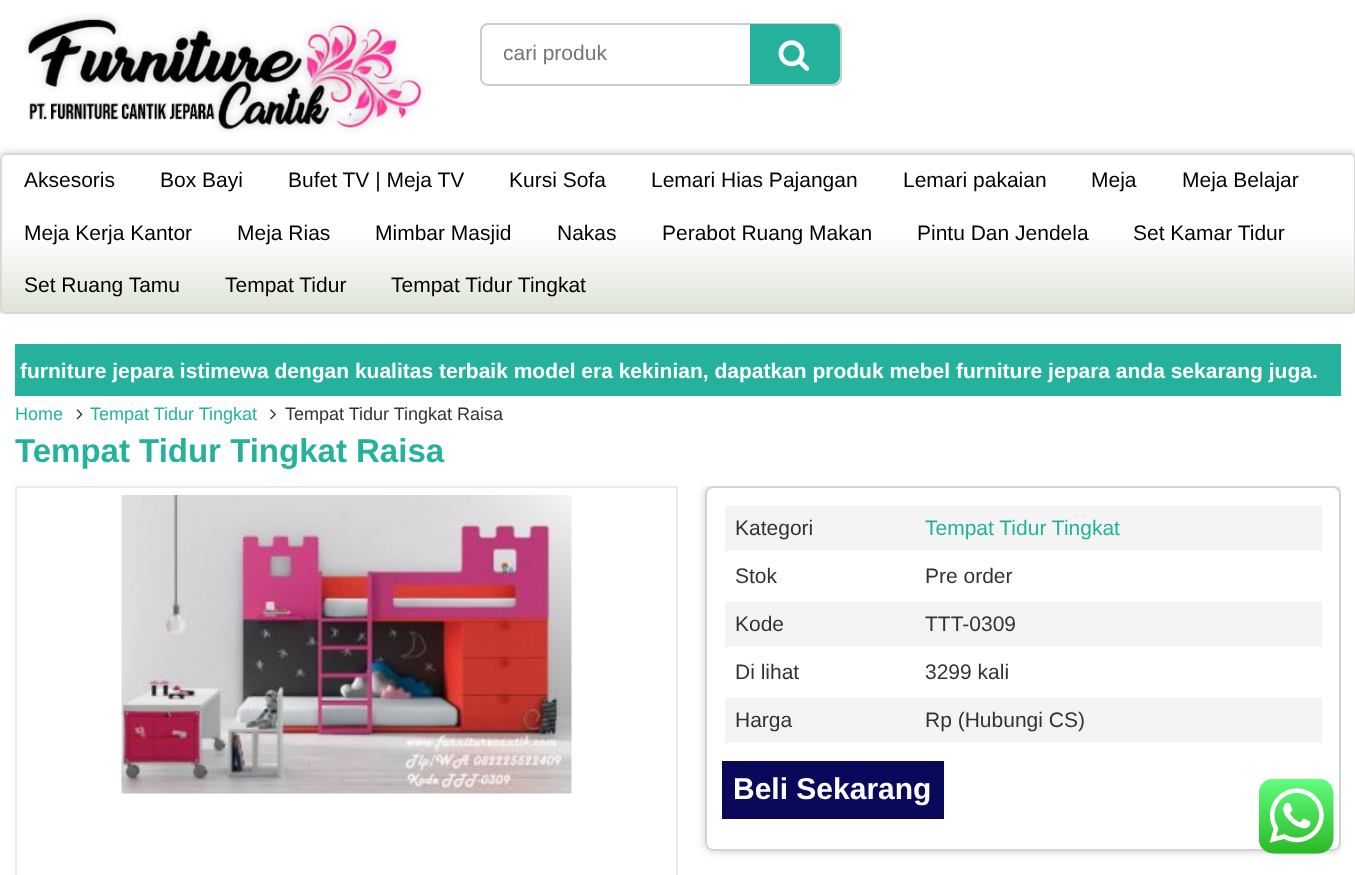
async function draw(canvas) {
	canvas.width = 1355;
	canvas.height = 875;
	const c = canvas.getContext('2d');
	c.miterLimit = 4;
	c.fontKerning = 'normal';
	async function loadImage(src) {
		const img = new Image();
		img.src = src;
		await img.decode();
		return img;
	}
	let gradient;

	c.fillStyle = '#fff';
	c.fillRect(0, 0, 1355, 875);
	c.drawImage(await loadImage('img1.png'), 24, 13, 401, 120);
	c.beginPath();
	c.roundRect(481, 24, 360, 61, 7);
	c.strokeStyle = '#ccc';
	c.lineWidth = 2;
	c.stroke();
	c.font = '21px Liberation Sans';
	c.fillStyle = '#757575';
	c.fillText('cari produk', 503, 60);
	c.fillStyle = '#25b29d';
	c.beginPath();
	c.roundRect(750, 24, 90, 60, [0, 8, 8, 0]);
	c.fill();
	c.drawImage(await loadImage('img2.png'), 778, 40, 32, 31);
	c.fillStyle = '#00000033';
	c.filter = 'blur(4px)';
	c.beginPath();
	c.roundRect(0, 153, 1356, 161, 6);
	c.fill();
	c.filter = 'none';
	c.save();
	c.beginPath();
	c.roundRect(0, 153, 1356, 161, 6);
	c.clip();
	gradient = c.createLinearGradient(678, 154, 678, 312);
	gradient.addColorStop(0, '#fff');
	gradient.addColorStop(0.5, '#fff');
	gradient.addColorStop(1, '#dee4d6');
	c.fillStyle = gradient;
	c.fillRect(0, 155, 1355, 157);
	c.restore();
	c.beginPath();
	c.roundRect(1, 154, 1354, 159, 5);
	c.strokeStyle = '#d9d9d9';
	c.stroke();
	c.fillStyle = '#000';
	for (const [text, x, y] of [
		['Aksesoris', 24, 187],
		['Box Bayi', 160, 187],
		['Bufet TV | Meja TV', 288, 187],
		['Kursi Sofa', 509, 187],
		['Lemari Hias Pajangan', 651, 187],
		['Lemari pakaian', 903, 187],
		['Meja', 1091, 187],
		['Meja Belajar', 1182, 187],
		['Meja Kerja Kantor', 24, 240],
		['Meja Rias', 237, 240],
		['Mimbar Masjid', 375, 240],
		['Nakas', 557, 240],
		['Perabot Ruang Makan', 662, 240],
		['Pintu Dan Jendela', 917, 240],
		['Set Kamar Tidur', 1133, 240],
		['Set Ruang Tamu', 24, 292],
		['Tempat Tidur', 225, 292],
		['Tempat Tidur Tingkat', 391, 292],
	]) {
		c.fillText(text, x, y);
	}
	c.fillStyle = '#fff';
	c.fillRect(0, 314, 1355, 7);
	c.fillStyle = '#25b29d';
	c.fillRect(15, 344, 1326, 52);
	c.font = 'bold 21px Liberation Sans';
	c.fillStyle = '#fff';
	c.fillText('furniture jepara istimewa dengan kualitas terbaik model era kekinian, dapatkan produk mebel furniture jepara anda sekarang juga.', 20, 378);
	c.font = '18px Liberation Sans';
	c.fillStyle = '#25b29d';
	c.fillText('Home', 15, 420);
	c.drawImage(await loadImage('img3.png'), 76, 409, 7, 11);
	c.fillText('Tempat Tidur Tingkat', 90, 420);
	c.drawImage(await loadImage('img4.png'), 270, 409, 6, 11);
	c.fillStyle = '#333';
	c.fillText('Tempat Tidur Tingkat Raisa', 285, 420);
	c.font = 'bold 33px Liberation Sans';
	c.fillStyle = '#25b29d';
	c.fillText('Tempat Tidur Tingkat Raisa', 15, 462);
	c.strokeStyle = '#ebebeb';
	c.strokeRect(16, 487, 661, 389);
	c.drawImage(await loadImage('img5.png'), 121, 495, 451, 299);
	c.save();
	c.beginPath();
	c.rect(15, 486, 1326, 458);
	c.clip();
	c.beginPath();
	c.moveTo(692, 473);
	c.lineTo(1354, 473);
	c.lineTo(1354, 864);
	c.lineTo(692, 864);
	c.closePath();
	c.moveTo(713, 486);
	c.lineTo(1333, 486);
	c.bezierCurveTo(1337.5, 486, 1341, 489.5, 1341, 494);
	c.lineTo(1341, 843);
	c.bezierCurveTo(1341, 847.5, 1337.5, 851, 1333, 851);
	c.lineTo(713, 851);
	c.bezierCurveTo(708.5, 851, 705, 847.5, 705, 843);
	c.lineTo(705, 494);
	c.bezierCurveTo(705, 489.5, 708.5, 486, 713, 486);
	c.closePath();
	c.clip('evenodd');
	c.fillStyle = '#00000033';
	c.filter = 'blur(4px)';
	c.beginPath();
	c.roundRect(705, 486, 636, 365, 8);
	c.fill();
	c.filter = 'none';
	c.restore();
	c.beginPath();
	c.roundRect(706, 487, 634, 363, 7);
	c.strokeStyle = '#d1d3d4';
	c.stroke();
	c.fillStyle = '#f4f4f4';
	c.fillRect(725, 506, 597, 45);
	c.font = '21px Liberation Sans';
	c.fillStyle = '#333';
	c.fillText('Kategori', 735, 535);
	c.fillStyle = '#25b29d';
	c.fillText('Tempat Tidur Tingkat', 925, 535);
	c.fillStyle = '#333';
	c.fillText('Stok', 735, 583);
	c.fillText('Pre order', 925, 583);
	c.fillStyle = '#f4f4f4';
	c.fillRect(725, 602, 597, 45);
	c.fillStyle = '#333';
	for (const [text, x, y] of [
		['Kode', 735, 631],
		['TTT-0309', 925, 631],
		['Di lihat', 735, 679],
		['3299 kali', 925, 679],
	]) {
		c.fillText(text, x, y);
	}
	c.fillStyle = '#f4f4f4';
	c.fillRect(725, 698, 597, 45);
	c.fillStyle = '#333';
	c.fillText('Harga', 735, 727);
	c.fillText('Rp (Hubungi CS)', 925, 727);
	c.fillStyle = '#09085b';
	c.fillRect(722, 761, 222, 58);
	c.font = 'bold 30px Liberation Sans';
	c.fillStyle = '#fff';
	c.fillText('Beli Sekarang', 733, 799);
	c.drawImage(await loadImage('img6.png'), 1259, 779, 75, 75);
}

draw(document.querySelector('canvas'));
